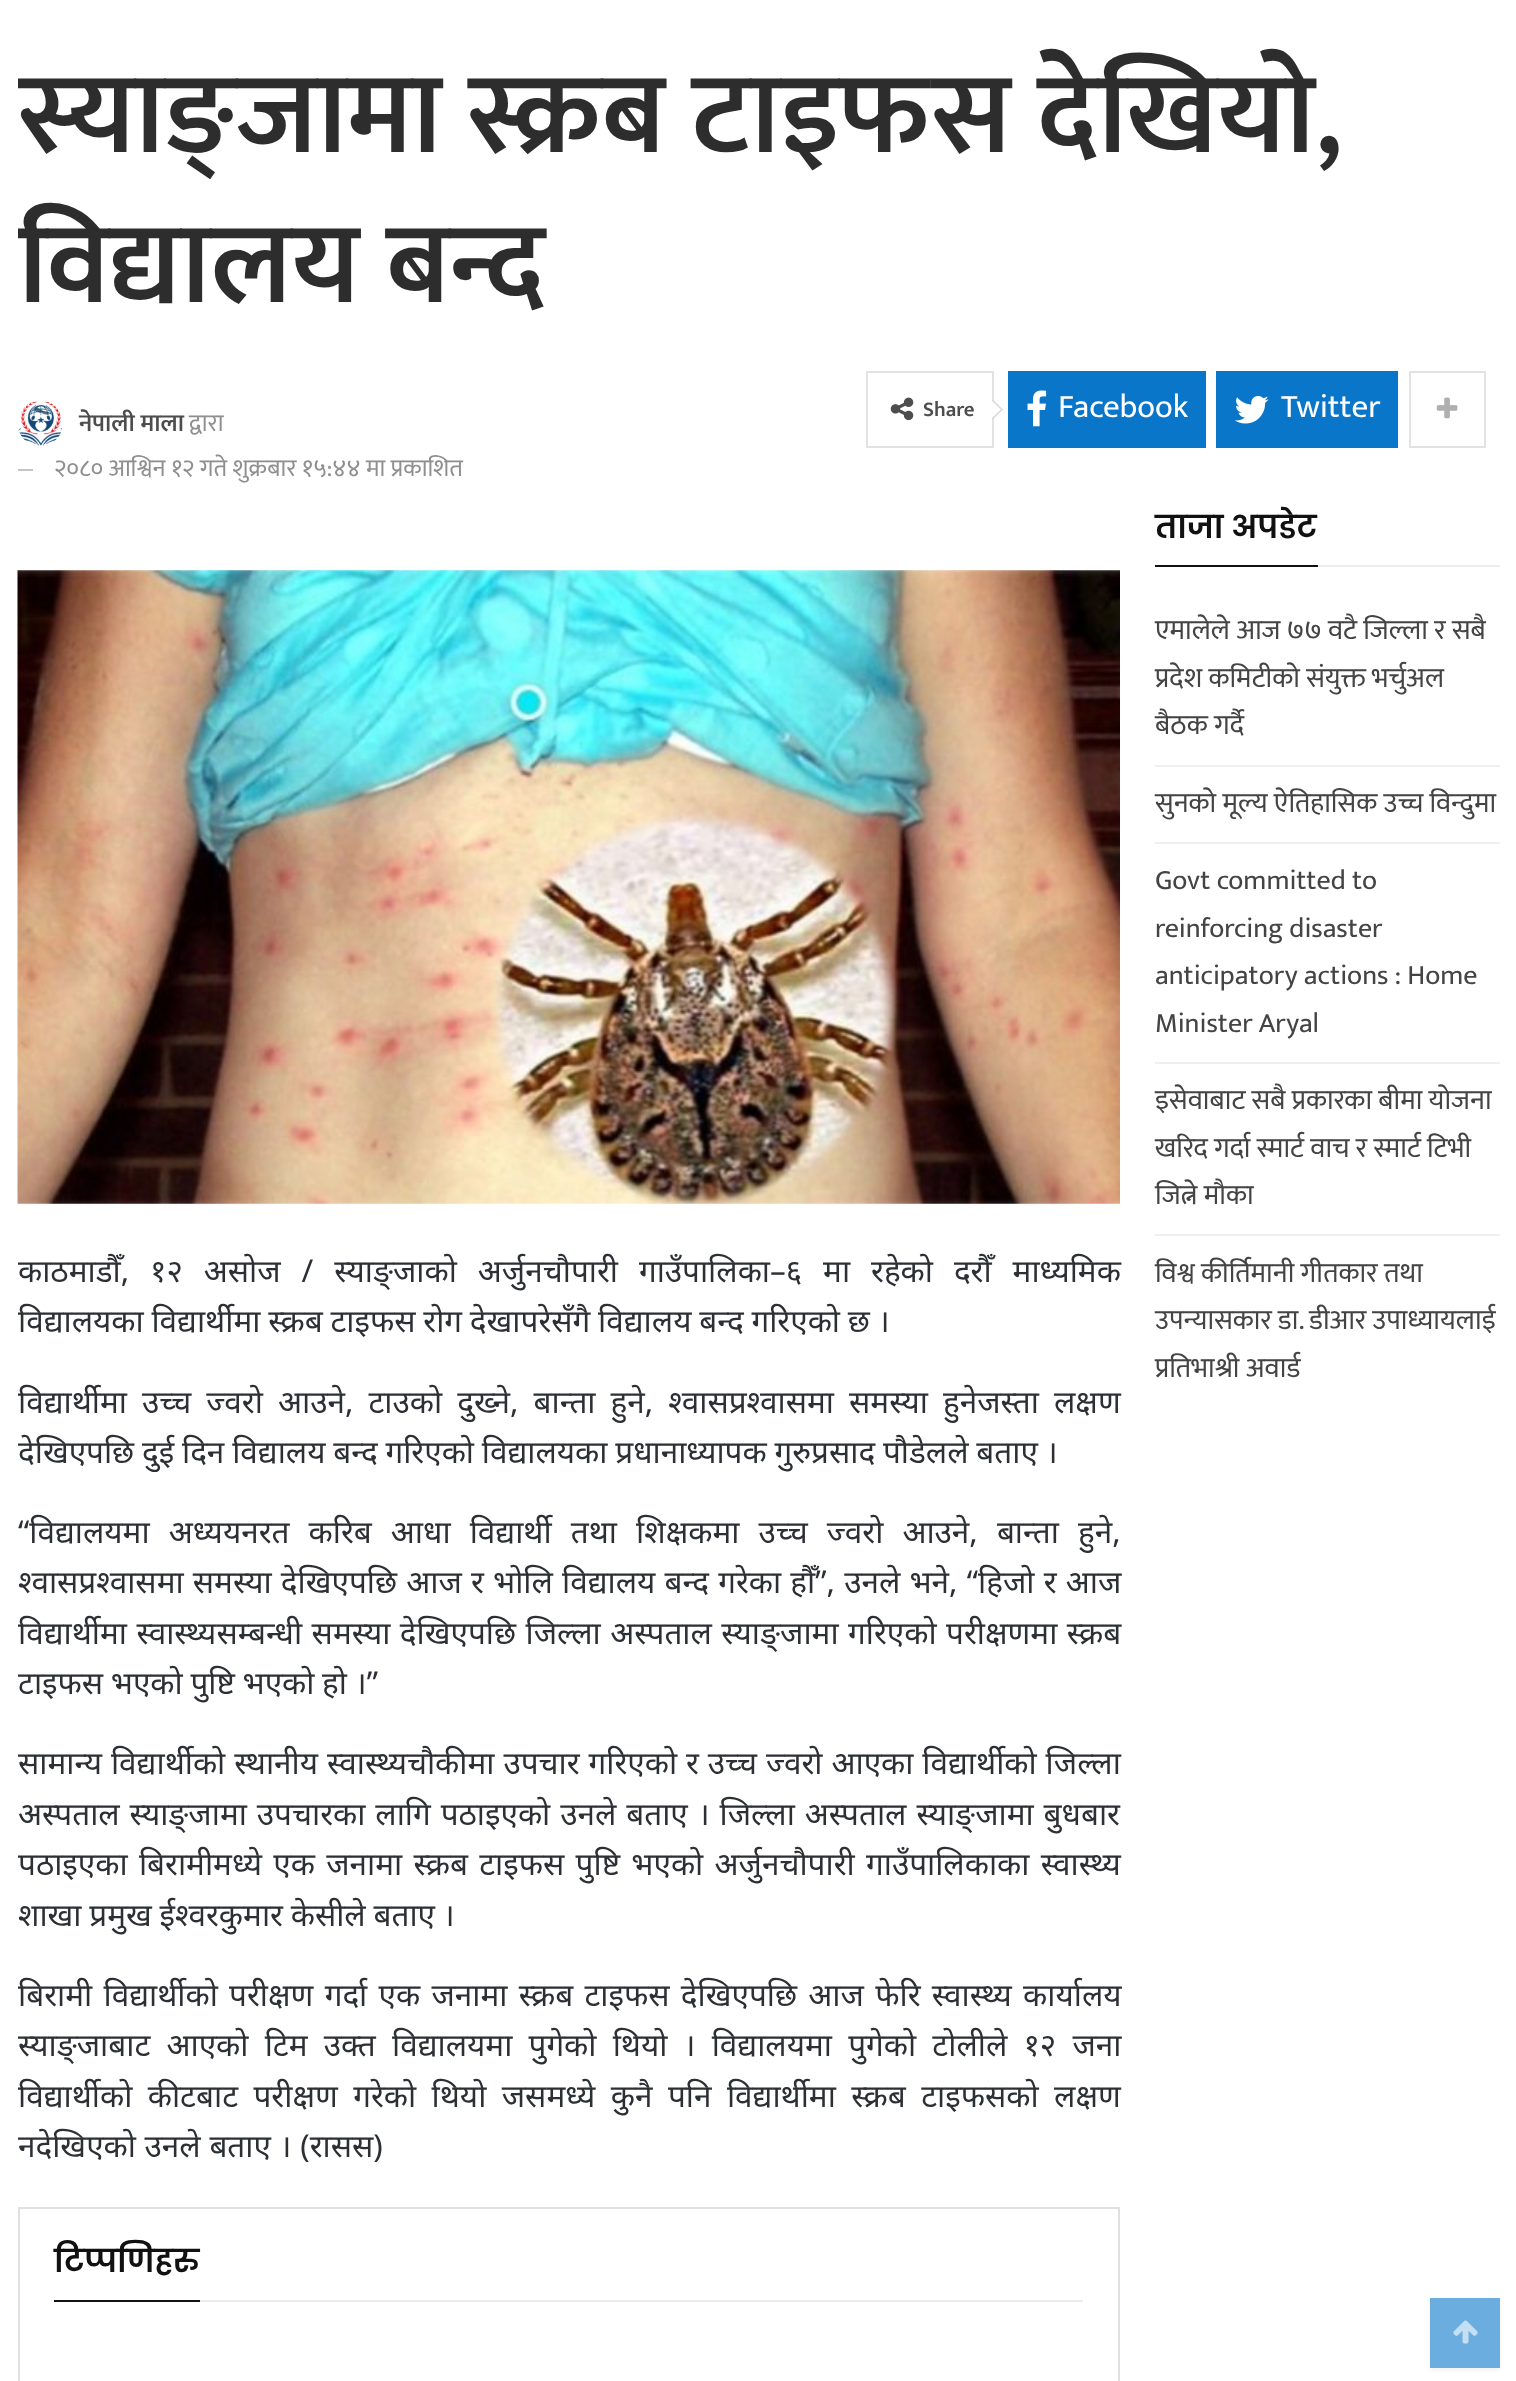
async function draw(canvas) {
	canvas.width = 1516;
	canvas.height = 2381;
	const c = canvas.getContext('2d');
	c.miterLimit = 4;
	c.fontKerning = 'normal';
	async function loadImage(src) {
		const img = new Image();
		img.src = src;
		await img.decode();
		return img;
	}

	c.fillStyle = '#fff';
	c.fillRect(0, 0, 1516, 2381);
	c.save();
	c.beginPath();
	c.rect(18, 44, 1482, 448);
	c.clip();
	c.font = '600 115.5px Mukta';
	c.fillStyle = '#2d2d2d';
	c.fillText('स्याङ्जामा स्क्रब टाइफस देखियो,', 18, 152);
	c.fillText('विद्यालय बन्द', 18, 302);
	c.restore();
	c.strokeStyle = '#e2e2e2';
	c.lineWidth = 2;
	c.strokeRect(867, 372, 126, 75);
	c.drawImage(await loadImage('img1.png'), 890, 397, 24, 24);
	c.font = '600 21px Mukta';
	c.fillStyle = '#4d4d4d';
	c.fillText('Share', 923, 416);
	c.fillStyle = '#d7d7d7';
	c.beginPath();
	c.moveTo(992, 420);
	c.lineTo(992, 399);
	c.lineTo(1003, 409.5);
	c.closePath();
	c.fill();
	c.fillStyle = '#fff';
	c.beginPath();
	c.moveTo(992, 418);
	c.lineTo(992, 401);
	c.lineTo(1001, 409.5);
	c.closePath();
	c.fill();
	c.fillStyle = '#0a76c9';
	c.fillRect(1008, 371, 198, 77);
	c.drawImage(await loadImage('img2.png'), 1027, 390, 20, 37);
	c.font = '33px Mukta';
	c.fillStyle = '#fff';
	c.fillText('Facebook', 1058, 417);
	c.fillStyle = '#0a76c9';
	c.fillRect(1216, 371, 182, 77);
	c.drawImage(await loadImage('img3.png'), 1235, 396, 34, 28);
	c.fillStyle = '#fff';
	c.fillText('Twitter', 1281, 417);
	c.strokeRect(1410, 372, 75, 75);
	c.drawImage(await loadImage('img4.png'), 1436, 397, 22, 22);
	c.drawImage(await loadImage('img5.png'), 18, 401, 45, 45);
	c.save();
	c.beginPath();
	c.rect(75, 401, 149, 45);
	c.clip();
	c.font = '600 24.5px Mukta';
	c.fillStyle = '#4d4d4d';
	c.fillText('नेपाली माला', 79, 431);
	c.restore();
	c.font = '24.5px Mukta';
	c.fillStyle = '#8f8f8f';
	c.fillText('द्वारा', 189, 431);
	c.fillStyle = '#c4c4c4';
	c.fillRect(18, 469, 15, 2);
	c.fillStyle = '#8f8f8f';
	c.fillText('२०८० आश्विन १२ गते शुक्रबार १५:४४ मा प्रकाशित', 54, 476);
	c.font = '600 31.5px Poppins';
	c.fillStyle = '#111';
	c.fillText('ताजा अपडेट', 1155, 538);
	for (const [x, y, w, h, color] of [
		[1155, 565, 163, 2, '#111'],
		[1318, 565, 182, 2, '#ededed'],
		[1155, 765, 345, 2, '#f0f0f0'],
	]) {
		c.fillStyle = color;
		c.fillRect(x, y, w, h);
	}
	c.font = '28px Mukta';
	c.fillStyle = '#444';
	for (const [text, x, y] of [
		['एमालेले आज ७७ वटै जिल्ला र सबै', 1155, 639],
		['प्रदेश कमिटीको संयुक्त भर्चुअल', 1155, 687],
		['बैठक गर्दै', 1155, 734],
	]) {
		c.fillText(text, x, y);
	}
	c.fillStyle = '#f0f0f0';
	c.fillRect(1155, 842, 345, 2);
	c.fillStyle = '#444';
	c.fillText('सुनको मूल्य ऐतिहासिक उच्च विन्दुमा', 1155, 812);
	c.fillStyle = '#f0f0f0';
	c.fillRect(1155, 1062, 345, 2);
	c.fillStyle = '#444';
	for (const [text, x, y] of [
		['Govt committed to', 1155, 889],
		['reinforcing disaster', 1155, 937],
		['anticipatory actions : Home', 1155, 984],
		['Minister Aryal', 1155, 1032],
	]) {
		c.fillText(text, x, y);
	}
	c.fillStyle = '#f0f0f0';
	c.fillRect(1155, 1234, 345, 2);
	c.fillStyle = '#444';
	for (const [text, x, y] of [
		['इसेवाबाट सबै प्रकारका बीमा योजना', 1155, 1109],
		['खरिद गर्दा स्मार्ट वाच र स्मार्ट टिभी', 1155, 1157],
		['जित्ने मौका', 1155, 1204],
		['विश्व कीर्तिमानी गीतकार तथा', 1155, 1282],
	]) {
		c.fillText(text, x, y);
	}
	c.wordSpacing = '-0.4px';
	c.fillText('उपन्यासकार डा. डीआर उपाध्यायलाई', 1155, 1329);
	c.wordSpacing = '0px';
	c.fillText('प्रतिभाश्री अवार्ड', 1155, 1377);
	c.drawImage(await loadImage('img6.png'), 17, 570, 1103, 634);
	c.wordSpacing = '12.75px';
	c.font = '31.5px Noto Sans';
	c.fillStyle = '#2c2f34';
	c.fillText('काठमाडौँ, १२ असोज / स्याङ्जाको अर्जुनचौपारी गाउँपालिका–६ मा रहेको दरौँ माध्यमिक', 18, 1282);
	c.wordSpacing = '-0.4px';
	c.fillText('विद्यालयका विद्यार्थीमा स्क्रब टाइफस रोग देखापरेसँगै विद्यालय बन्द गरिएको छ ।', 18, 1332);
	c.wordSpacing = '6.9px';
	c.fillText('विद्यार्थीमा उच्च ज्वरो आउने, टाउको दुख्ने, बान्ता हुने, श्वासप्रश्वासमा समस्या हुनेजस्ता लक्षण', 18, 1413);
	c.wordSpacing = '-0.4px';
	c.fillText('देखिएपछि दुई दिन विद्यालय बन्द गरिएको विद्यालयका प्रधानाध्यापक गुरुप्रसाद पौडेलले बताए ।', 18, 1463);
	c.wordSpacing = '10.9px';
	c.fillText('“विद्यालयमा अध्ययनरत करिब आधा विद्यार्थी तथा शिक्षकमा उच्च ज्वरो आउने, बान्ता हुने,', 18, 1543);
	c.wordSpacing = '1px';
	c.fillText('श्वासप्रश्वासमा समस्या देखिएपछि आज र भोलि विद्यालय बन्द गरेका हौँ”, उनले भने, “हिजो र आज', 18, 1593);
	c.wordSpacing = '1.25px';
	c.fillText('विद्यार्थीमा स्वास्थ्यसम्बन्धी समस्या देखिएपछि जिल्ला अस्पताल स्याङ्जामा गरिएको परीक्षणमा स्क्रब', 18, 1644);
	c.wordSpacing = '-0.5px';
	c.fillText('टाइफस भएको पुष्टि भएको हो ।”', 18, 1694);
	c.wordSpacing = '0.75px';
	c.fillText('सामान्य विद्यार्थीको स्थानीय स्वास्थ्यचौकीमा उपचार गरिएको र उच्च ज्वरो आएका विद्यार्थीको जिल्ला', 18, 1774);
	c.wordSpacing = '1.75px';
	c.fillText('अस्पताल स्याङ्जामा उपचारका लागि पठाइएको उनले बताए । जिल्ला अस्पताल स्याङ्जामा बुधबार', 18, 1825);
	c.wordSpacing = '3.1px';
	c.fillText('पठाइएका बिरामीमध्ये एक जनामा स्क्रब टाइफस पुष्टि भएको अर्जुनचौपारी गाउँपालिकाका स्वास्थ्य', 18, 1875);
	c.wordSpacing = '-0.4px';
	c.fillText('शाखा प्रमुख ईश्वरकुमार केसीले बताए ।', 18, 1926);
	c.wordSpacing = '3.1px';
	c.fillText('बिरामी विद्यार्थीको परीक्षण गर्दा एक जनामा स्क्रब टाइफस देखिएपछि आज फेरि स्वास्थ्य कार्यालय', 18, 2006);
	c.wordSpacing = '8px';
	c.fillText('स्याङ्जाबाट आएको टिम उक्त विद्यालयमा पुगेको थियो । विद्यालयमा पुगेको टोलीले १२ जना', 18, 2056);
	c.wordSpacing = '7.25px';
	c.fillText('विद्यार्थीको कीटबाट परीक्षण गरेको थियो जसमध्ये कुनै पनि विद्यार्थीमा स्क्रब टाइफसको लक्षण', 18, 2107);
	c.wordSpacing = '0.5px';
	c.fillText('नदेखिएको उनले बताए । (रासस)', 18, 2157);
	c.strokeStyle = '#e0e0e0';
	c.strokeRect(19, 2208, 1100, 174);
	c.wordSpacing = '0px';
	c.font = '600 31.5px Poppins';
	c.fillStyle = '#111';
	c.fillText('टिप्पणिहरु', 54, 2272);
	c.fillRect(54, 2300, 146, 2);
	c.fillStyle = '#ededed';
	c.fillRect(200, 2300, 883, 2);
	c.fillStyle = '#66666617';
	c.filter = 'blur(2px)';
	c.beginPath();
	c.rect(1430, 2300, 70, 70);
	c.fill();
	c.filter = 'none';
	c.fillStyle = '#6caddf';
	c.fillRect(1430, 2298, 70, 70);
	c.drawImage(await loadImage('img7.png'), 1453, 2320, 25, 24);
}

draw(document.querySelector('canvas'));
